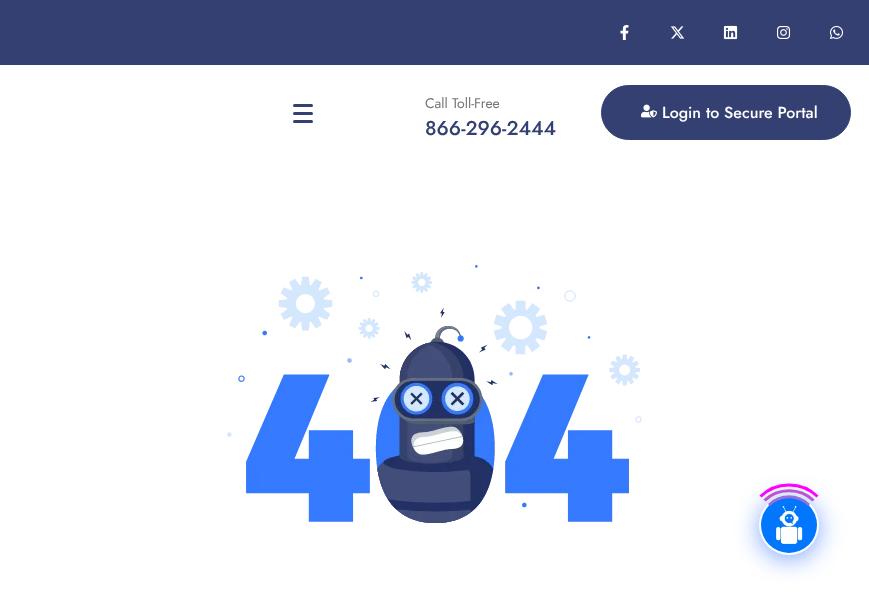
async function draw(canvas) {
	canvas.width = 869;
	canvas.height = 605;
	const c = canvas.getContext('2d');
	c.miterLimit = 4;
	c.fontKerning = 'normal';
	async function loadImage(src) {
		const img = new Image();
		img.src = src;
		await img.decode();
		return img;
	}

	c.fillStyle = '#fff';
	c.fillRect(0, 0, 869, 605);
	c.fillStyle = '#344071';
	c.fillRect(0, 0, 869, 65);
	c.drawImage(await loadImage('img1.png'), 620, 25, 9, 15);
	c.drawImage(await loadImage('img2.png'), 670, 26, 15, 13);
	c.drawImage(await loadImage('img3.png'), 723, 25, 15, 15);
	c.drawImage(await loadImage('img4.png'), 777, 26, 14, 13);
	c.drawImage(await loadImage('img5.png'), 830, 25, 14, 14);
	c.beginPath();
	c.roundRect(293, 112, 20, 3, 1.5);
	c.fill();
	c.beginPath();
	c.roundRect(293, 104, 20, 3, 1.5);
	c.fill();
	c.beginPath();
	c.roundRect(293, 120, 20, 3, 1.5);
	c.fill();
	c.font = '14px Jost';
	c.fillStyle = '#757575';
	c.fillText('Call Toll-Free', 425, 108);
	c.font = '500 20px Jost';
	c.fillStyle = '#344071';
	c.fillText('866-296-2444', 425, 135);
	c.beginPath();
	c.roundRect(601.5, 85.5, 249, 54, 27);
	c.fill();
	c.strokeStyle = '#344071';
	c.stroke();
	c.drawImage(await loadImage('img6.png'), 641, 104, 16, 14);
	c.font = '500 16px Jost';
	c.fillStyle = '#fff';
	c.fillText('Login to Secure Portal', 662, 118);
	c.drawImage(await loadImage('img7.png'), 227, 265, 415, 258);
	c.fillStyle = '#004dff80';
	c.filter = 'blur(12px)';
	c.beginPath();
	c.roundRect(759, 499, 60, 60, 30);
	c.fill();
	c.filter = 'none';
	c.fillStyle = '#fff';
	c.beginPath();
	c.arc(789, 525, 30, 0, 2 * Math.PI);
	c.fill();
	c.drawImage(await loadImage('img8.png'), 761, 498, 56, 55);
	c.beginPath();
	c.moveTo(769, 505);
	c.bezierCurveTo(780, 494, 798, 494, 809, 505);
	c.strokeStyle = '#9370db';
	c.lineWidth = 3;
	c.stroke();
	c.beginPath();
	c.moveTo(764.5, 500.5);
	c.bezierCurveTo(778, 487.5, 800, 487.5, 813.5, 500.5);
	c.strokeStyle = '#ba55d3';
	c.stroke();
	c.beginPath();
	c.moveTo(760.5, 496.5);
	c.bezierCurveTo(776, 481, 802, 481, 817.5, 496.5);
	c.strokeStyle = '#f0f';
	c.stroke();
}

draw(document.querySelector('canvas'));
